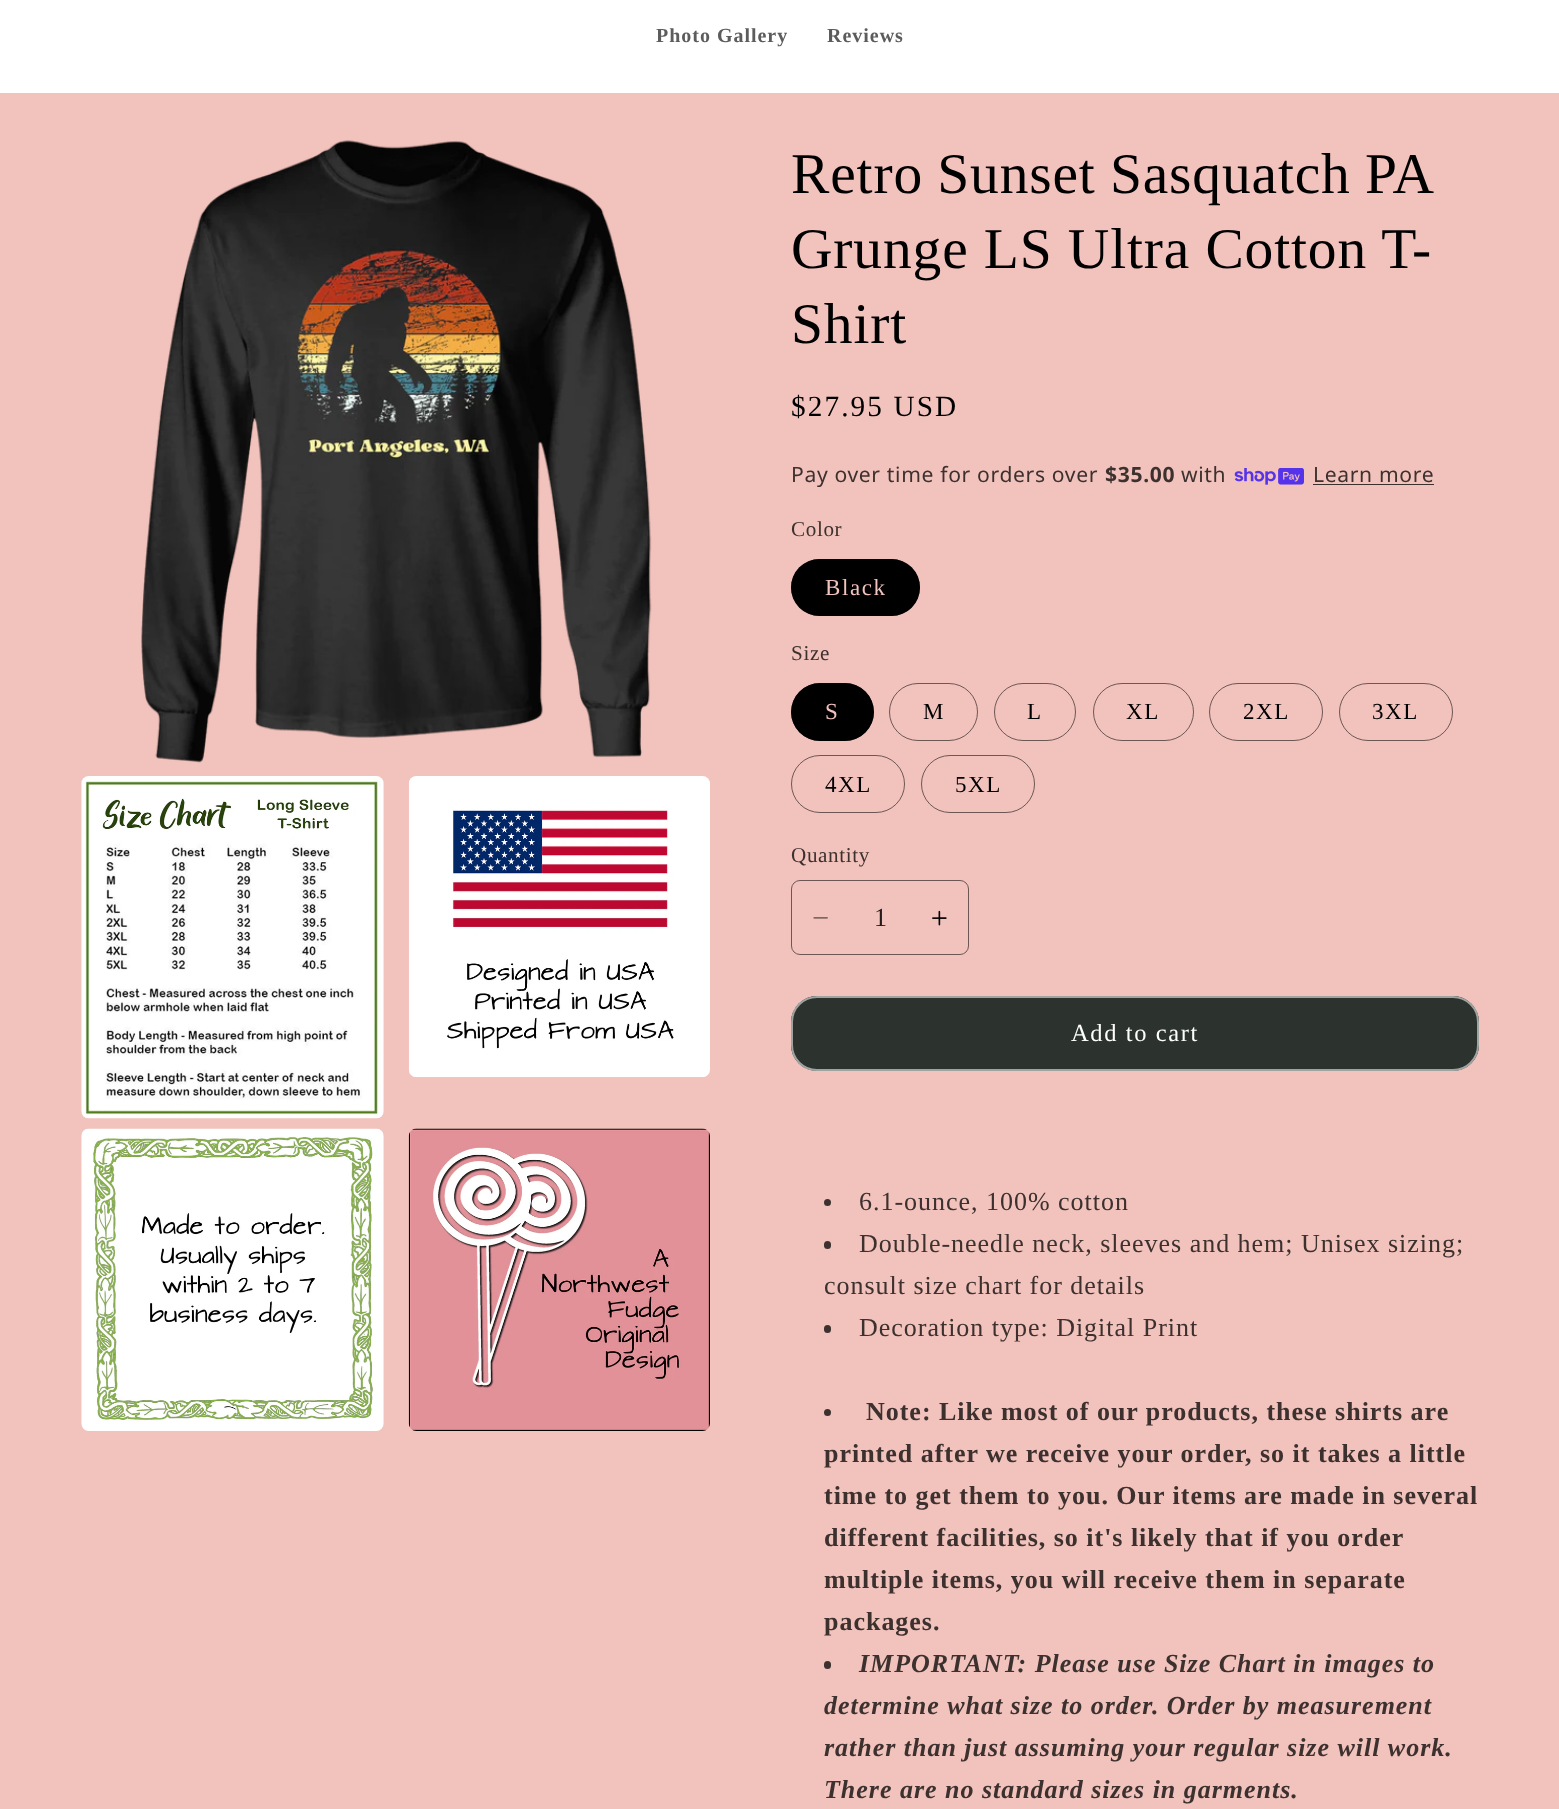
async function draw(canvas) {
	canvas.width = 1559;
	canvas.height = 1809;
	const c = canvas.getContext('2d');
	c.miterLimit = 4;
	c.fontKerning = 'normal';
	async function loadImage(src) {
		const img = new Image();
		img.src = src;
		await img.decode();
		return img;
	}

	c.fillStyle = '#f2c2bc';
	c.fillRect(0, 0, 1559, 1809);
	c.fillStyle = '#fff';
	c.fillRect(0, 0, 1559, 93);
	c.letterSpacing = '0.98px';
	c.font = 'bold 20px Liberation Serif';
	c.fillStyle = '#5c5c5c';
	c.fillText('Photo Gallery', 656, 42);
	c.fillText('Reviews', 827, 42);
	c.drawImage(await loadImage('img1.png'), 141, 140, 511, 623);
	c.drawImage(await loadImage('img2.png'), 81, 776, 303, 343);
	c.drawImage(await loadImage('img3.png'), 408, 776, 302, 302);
	c.drawImage(await loadImage('img4.png'), 81, 1128, 303, 303);
	c.drawImage(await loadImage('img5.png'), 408, 1128, 302, 303);
	c.letterSpacing = '0.85px';
	c.wordSpacing = '-1px';
	c.font = '57.5px Liberation Serif';
	c.fillStyle = '#000';
	c.fillText('Retro Sunset Sasquatch PA', 791, 193);
	c.wordSpacing = '0px';
	c.fillText('Grunge LS Ultra Cotton T-', 791, 268);
	c.fillText('Shirt', 791, 343);
	c.letterSpacing = '2.1px';
	c.font = '29.25px Liberation Serif';
	c.fillText('$27.95 USD', 791, 416);
	c.letterSpacing = '0.65px';
	c.font = '21.1px Noto Sans';
	c.fillStyle = '#3d312f';
	c.fillText('Pay over time for orders over', 791, 482);
	c.font = 'bold 21.1px Noto Sans';
	c.fillText('$35.00', 1105, 482);
	c.font = '21.1px Noto Sans';
	c.fillText('with', 1181, 482);
	c.drawImage(await loadImage('img6.png'), 1234, 468, 70, 17);
	c.fillText('Learn more', 1313, 482);
	c.fillRect(1313, 484, 121, 1);
	c.font = '21.1px Liberation Serif';
	c.fillText('Color', 791, 536);
	c.fillStyle = '#000';
	c.beginPath();
	c.roundRect(791, 559, 129, 57, 28.5);
	c.fill();
	c.beginPath();
	c.roundRect(791.5, 559.5, 128, 56, 28);
	c.strokeStyle = '#0000008c';
	c.stroke();
	c.letterSpacing = '1.6px';
	c.font = '23px Liberation Serif';
	c.fillStyle = '#f2c2bc';
	c.fillText('Black', 825, 595);
	c.letterSpacing = '0.65px';
	c.font = '21.1px Liberation Serif';
	c.fillStyle = '#3d312f';
	c.fillText('Size', 791, 660);
	c.fillStyle = '#000';
	c.beginPath();
	c.roundRect(791, 683, 83, 58, 29);
	c.fill();
	c.beginPath();
	c.roundRect(791.5, 683.5, 82, 57, 28.5);
	c.stroke();
	c.letterSpacing = '1.6px';
	c.font = '23px Liberation Serif';
	c.fillStyle = '#f2c2bc';
	c.fillText('S', 825, 719);
	c.beginPath();
	c.roundRect(889.5, 683.5, 88, 57, 28.5);
	c.strokeStyle = '#6d5755';
	c.stroke();
	c.fillStyle = '#000';
	c.fillText('M', 923, 719);
	c.beginPath();
	c.roundRect(994.5, 683.5, 81, 57, 28.5);
	c.stroke();
	c.fillText('L', 1027, 719);
	c.beginPath();
	c.roundRect(1093.5, 683.5, 100, 57, 28.5);
	c.stroke();
	c.fillText('XL', 1126, 719);
	c.beginPath();
	c.roundRect(1209.5, 683.5, 113, 57, 28.5);
	c.stroke();
	c.fillText('2XL', 1243, 719);
	c.beginPath();
	c.roundRect(1339.5, 683.5, 113, 57, 28.5);
	c.stroke();
	c.fillText('3XL', 1372, 719);
	c.beginPath();
	c.roundRect(791.5, 755.5, 113, 57, 28.5);
	c.stroke();
	c.fillText('4XL', 825, 792);
	c.beginPath();
	c.roundRect(921.5, 755.5, 113, 57, 28.5);
	c.stroke();
	c.fillText('5XL', 955, 792);
	c.letterSpacing = '0.65px';
	c.font = '21.1px Liberation Serif';
	c.fillStyle = '#3d312f';
	c.fillText('Quantity', 791, 862);
	c.drawImage(await loadImage('img7.png'), 813, 917, 15, 2);
	c.drawImage(await loadImage('img8.png'), 932, 910, 15, 16);
	c.beginPath();
	c.roundRect(791.5, 880.5, 177, 74, 8.5);
	c.stroke();
	c.letterSpacing = '0px';
	c.font = '26px Liberation Serif';
	c.fillStyle = '#241d1c';
	c.fillText('1', 874, 926);
	c.fillStyle = '#2c332f';
	c.beginPath();
	c.roundRect(791, 996, 688, 75, 26);
	c.fill();
	c.beginPath();
	c.roundRect(791.5, 996.5, 687, 74, 25.5);
	c.strokeStyle = '#2c332f';
	c.stroke();
	c.beginPath();
	c.roundRect(792, 997, 686, 73, 25);
	c.strokeStyle = '#ffffff8c';
	c.lineWidth = 2;
	c.stroke();
	c.letterSpacing = '1.6px';
	c.font = '24.5px Liberation Serif';
	c.fillStyle = '#fff';
	c.fillText('Add to cart', 1071, 1041);
	c.fillStyle = '#3d312f';
	c.beginPath();
	c.arc(827.5, 1202.5, 3.5, 0, 2 * Math.PI);
	c.fill();
	c.letterSpacing = '0.98px';
	c.font = '26px Liberation Serif';
	c.fillText('6.1-ounce, 100% cotton', 859, 1210);
	c.beginPath();
	c.roundRect(824, 1241, 7, 8, 3.5);
	c.fill();
	c.fillText('Double-needle neck, sleeves and hem; Unisex sizing;', 859, 1252);
	c.fillText('consult size chart for details', 824, 1294);
	c.beginPath();
	c.roundRect(824, 1325, 7, 8, 3.5);
	c.fill();
	c.fillText('Decoration type: Digital Print', 859, 1336);
	c.beginPath();
	c.arc(827.5, 1412.5, 3.5, 0, 2 * Math.PI);
	c.fill();
	c.font = 'bold 26px Liberation Serif';
	for (const [text, x, y] of [
		['Note: Like most of our products, these shirts are', 866, 1420],
		['printed after we receive your order, so it takes a little', 824, 1462],
		['time to get them to you. Our items are made in several', 824, 1504],
		['different facilities, so it\'s likely that if you order', 824, 1546],
		['multiple items, you will receive them in separate', 824, 1588],
		['packages.', 824, 1630],
	]) {
		c.fillText(text, x, y);
	}
	c.beginPath();
	c.roundRect(824, 1661, 7, 8, 3.5);
	c.fill();
	c.font = 'italic bold 26px Liberation Serif';
	for (const [text, x, y] of [
		['IMPORTANT: Please use Size Chart in images to', 859, 1672],
		['determine what size to order. Order by measurement', 824, 1714],
		['rather than just assuming your regular size will work.', 824, 1756],
		['There are no standard sizes in garments.', 824, 1798],
	]) {
		c.fillText(text, x, y);
	}
}

draw(document.querySelector('canvas'));
